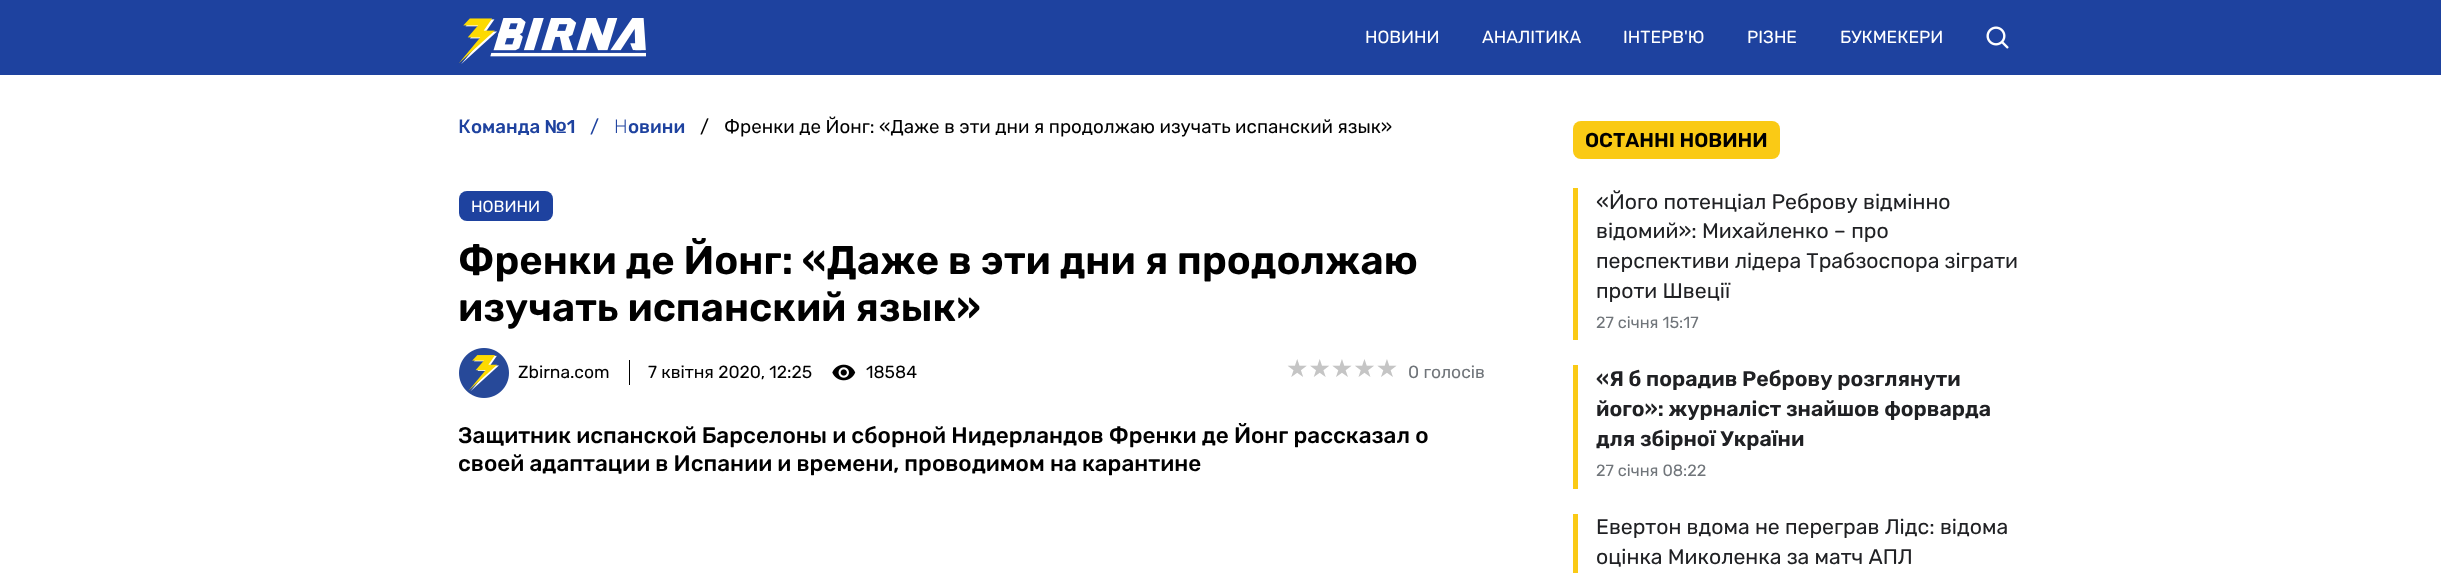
async function draw(canvas) {
	canvas.width = 2441;
	canvas.height = 573;
	const c = canvas.getContext('2d');
	c.miterLimit = 4;
	c.fontKerning = 'normal';
	async function loadImage(src) {
		const img = new Image();
		img.src = src;
		await img.decode();
		return img;
	}

	c.fillStyle = '#fff';
	c.fillRect(0, 0, 2441, 573);
	c.fillStyle = '#1e429f';
	c.fillRect(0, 0, 2441, 75);
	c.drawImage(await loadImage('img1.png'), 459, 18, 187, 46);
	c.font = '300 17.5px Rubik';
	c.fillStyle = '#fff';
	for (const [text, x, y] of [
		['НОВИНИ', 1365, 43],
		['АНАЛІТИКА', 1482, 43],
		['ІНТЕРВ\'Ю', 1623, 43],
		['РІЗНЕ', 1747, 43],
		['БУКМЕКЕРИ', 1840, 43],
	]) {
		c.fillText(text, x, y);
	}
	c.drawImage(await loadImage('img2.png'), 1986, 26, 23, 23);
	c.font = '600 18.75px Noto Sans';
	c.fillStyle = '#1e429f';
	c.fillText('К', 458, 133);
	c.font = '300 18.75px "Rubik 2"';
	c.fillText('оманда №1', 471, 133);
	c.font = '300 18.75px Rubik';
	c.fillText('/', 590, 133);
	c.font = '300 18.75px Noto Sans';
	c.fillText('Н', 614, 133);
	c.font = '300 18.75px "Rubik 2"';
	c.fillText('овини', 628, 133);
	c.font = '300 18.75px Rubik';
	c.fillStyle = '#000';
	c.fillText('/', 700, 133);
	c.fillText('Френки де Йонг: «Даже в эти дни я продолжаю изучать испанский язык»', 724, 133);
	c.fillStyle = '#1e429f';
	c.beginPath();
	c.roundRect(459, 191, 94, 30, 8);
	c.fill();
	c.font = '300 16.25px Rubik';
	c.fillStyle = '#fff';
	c.fillText('НОВИНИ', 471, 212);
	c.font = '600 40px Rubik';
	c.fillStyle = '#000';
	c.fillText('Френки де Йонг: «Даже в эти дни я продолжаю', 458, 274);
	c.fillText('изучать испанский язык»', 458, 321);
	c.drawImage(await loadImage('img3.png'), 459, 348, 50, 50);
	c.font = '300 17.5px Rubik';
	c.fillText('Zbirna.com', 518, 378);
	c.fillRect(629, 360, 1, 25);
	c.fillText('7 квітня 2020, 12:25', 648, 378);
	c.drawImage(await loadImage('img4.png'), 832, 364, 24, 17);
	c.fillText('18584', 866, 378);
	c.font = '25px DejaVu Sans';
	c.fillStyle = '#c5c5c5';
	c.fillText('★★★★★', 1286, 377);
	c.font = '300 17.5px Rubik';
	c.fillStyle = '#70757a';
	c.fillText('0 голосів', 1408, 378);
	c.font = '300 22.5px "Rubik 2"';
	c.fillStyle = '#000';
	c.fillText('Защитник испанской Барселоны и сборной Нидерландов Френки де Йонг рассказал о', 458, 443);
	c.fillText('своей адаптации в Испании и времени, проводимом на карантине', 458, 471);
	c.fillStyle = '#faca15';
	c.beginPath();
	c.roundRect(1573, 121, 207, 38, 8);
	c.fill();
	c.font = '600 20px Rubik';
	c.fillStyle = '#000';
	c.fillText('ОСТАННІ НОВИНИ', 1585, 147);
	c.fillStyle = '#faca15';
	c.fillRect(1573, 188, 5, 152);
	c.font = '300 21.25px Rubik';
	c.fillStyle = '#202124';
	for (const [text, x, y] of [
		['«Його потенціал Реброву відмінно', 1596, 209],
		['відомий»: Михайленко – про', 1596, 238],
		['перспективи лідера Трабзоспора зіграти', 1596, 268],
		['проти Швеції', 1596, 298],
	]) {
		c.fillText(text, x, y);
	}
	c.font = '300 16.25px Rubik';
	c.fillStyle = '#70757a';
	c.fillText('27 січня 15:17', 1596, 328);
	c.fillStyle = '#faca15';
	c.fillRect(1573, 365, 5, 124);
	c.font = '600 21.25px Rubik';
	c.fillStyle = '#202124';
	for (const [text, x, y] of [
		['«Я б порадив Реброву розглянути', 1596, 386],
		['його»: журналіст знайшов форварда', 1596, 416],
		['для збірної України', 1596, 446],
	]) {
		c.fillText(text, x, y);
	}
	c.font = '300 16.25px Rubik';
	c.fillStyle = '#70757a';
	c.fillText('27 січня 08:22', 1596, 476);
	c.fillStyle = '#faca15';
	c.fillRect(1573, 514, 5, 59);
	c.font = '300 21.25px Rubik';
	c.fillStyle = '#202124';
	c.fillText('Евертон вдома не переграв Лідс: відома', 1596, 534);
	c.fillText('оцінка Миколенка за матч АПЛ', 1596, 564);
}

draw(document.querySelector('canvas'));
